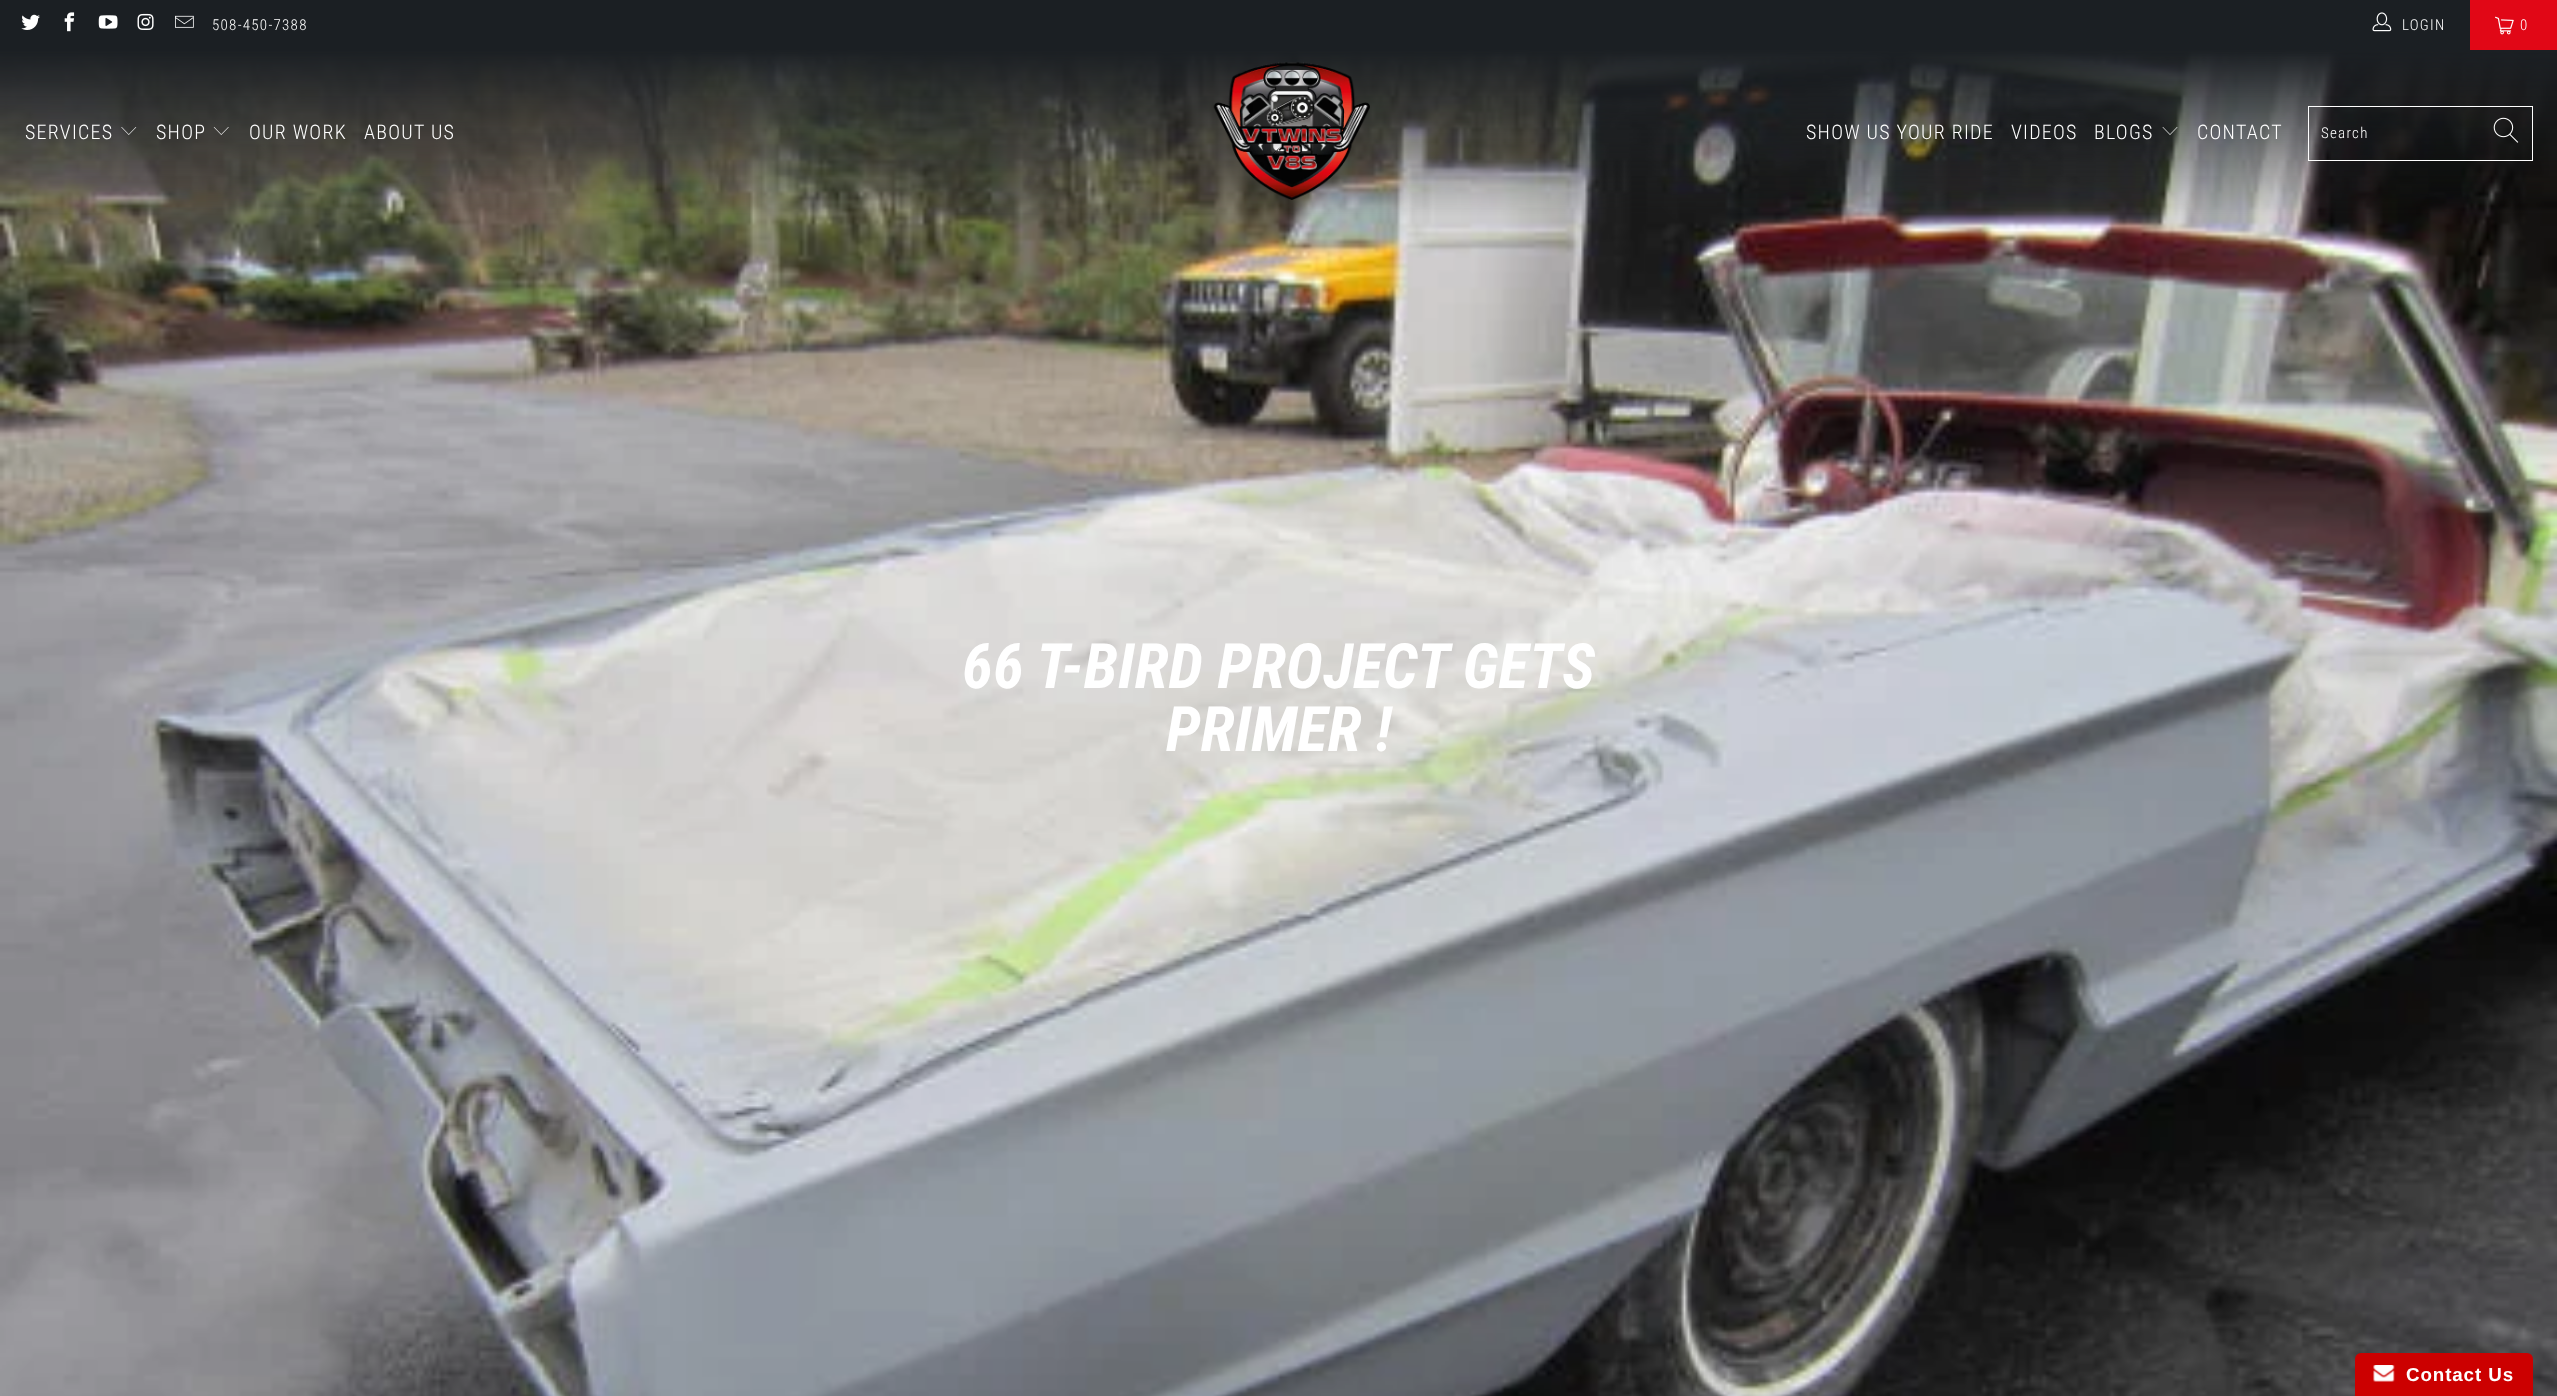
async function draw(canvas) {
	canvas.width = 2557;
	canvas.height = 1396;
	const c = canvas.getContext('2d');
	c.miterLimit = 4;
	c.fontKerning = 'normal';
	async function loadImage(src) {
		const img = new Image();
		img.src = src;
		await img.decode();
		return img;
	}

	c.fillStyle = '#fff';
	c.fillRect(0, 0, 2557, 1396);
	c.fillStyle = '#1b1f23';
	c.fillRect(0, 0, 2470, 50);
	c.drawImage(await loadImage('img1.png'), 21, 14, 19, 16);
	c.drawImage(await loadImage('img2.png'), 64, 12, 11, 20);
	c.drawImage(await loadImage('img3.png'), 98, 15, 20, 14);
	c.drawImage(await loadImage('img4.png'), 137, 13, 17, 17);
	c.drawImage(await loadImage('img5.png'), 175, 15, 19, 13);
	c.letterSpacing = '1.25px';
	c.font = '300 15px Roboto Condensed';
	c.fillStyle = '#fff';
	c.fillText('508-450-7388', 212, 30);
	c.drawImage(await loadImage('img6.png'), 2372, 12, 20, 20);
	c.fillText('LOGIN', 2402, 30);
	c.fillStyle = '#e10716';
	c.fillRect(2470, 0, 87, 50);
	c.drawImage(await loadImage('img7.png'), 2495, 16, 19, 19);
	c.fillStyle = '#fff';
	c.fillText('0', 2520, 30);
	c.drawImage(await loadImage('img13.png'), 0, 50, 2557, 1346);
	c.font = '300 20px Roboto Condensed';
	c.fillText('SERVICES', 25, 139);
	c.drawImage(await loadImage('img8.png'), 121, 127, 16, 8);
	c.fillText('SHOP', 156, 139);
	c.drawImage(await loadImage('img9.png'), 213, 127, 16, 8);
	c.fillText('OUR WORK', 249, 139);
	c.fillText('ABOUT US', 364, 139);
	c.drawImage(await loadImage('img10.png'), 1213, 62, 157, 138);
	for (const [text, x, y] of [
		['SHOW US YOUR RIDE', 1806, 139],
		['VIDEOS', 2011, 139],
		['BLOGS', 2094, 139],
	]) {
		c.fillText(text, x, y);
	}
	c.drawImage(await loadImage('img11.png'), 2162, 127, 16, 8);
	c.fillText('CONTACT', 2197, 139);
	c.strokeStyle = '#fff';
	c.strokeRect(2308.5, 106.5, 224, 54);
	c.font = '300 15px Roboto Condensed';
	c.fillText('Search', 2321, 138);
	c.drawImage(await loadImage('img12.png'), 2493, 117, 26, 26);
	c.letterSpacing = '0px';
	c.font = 'italic bold 62.5px Roboto Condensed';
	c.fillText('66 T-BIRD PROJECT GETS', 962, 688);
	c.fillText('PRIMER !', 1166, 751);
	c.fillStyle = '#c00';
	c.beginPath();
	c.roundRect(2355, 1353, 178, 43, [6, 6, 0, 0]);
	c.fill();
	c.drawImage(await loadImage('img14.png'), 2373, 1365, 22, 17);
	c.letterSpacing = '0.9px';
	c.font = 'bold 18.75px Liberation Sans';
	c.fillStyle = '#fff';
	c.fillText('Contact Us', 2406, 1381);
}

draw(document.querySelector('canvas'));
